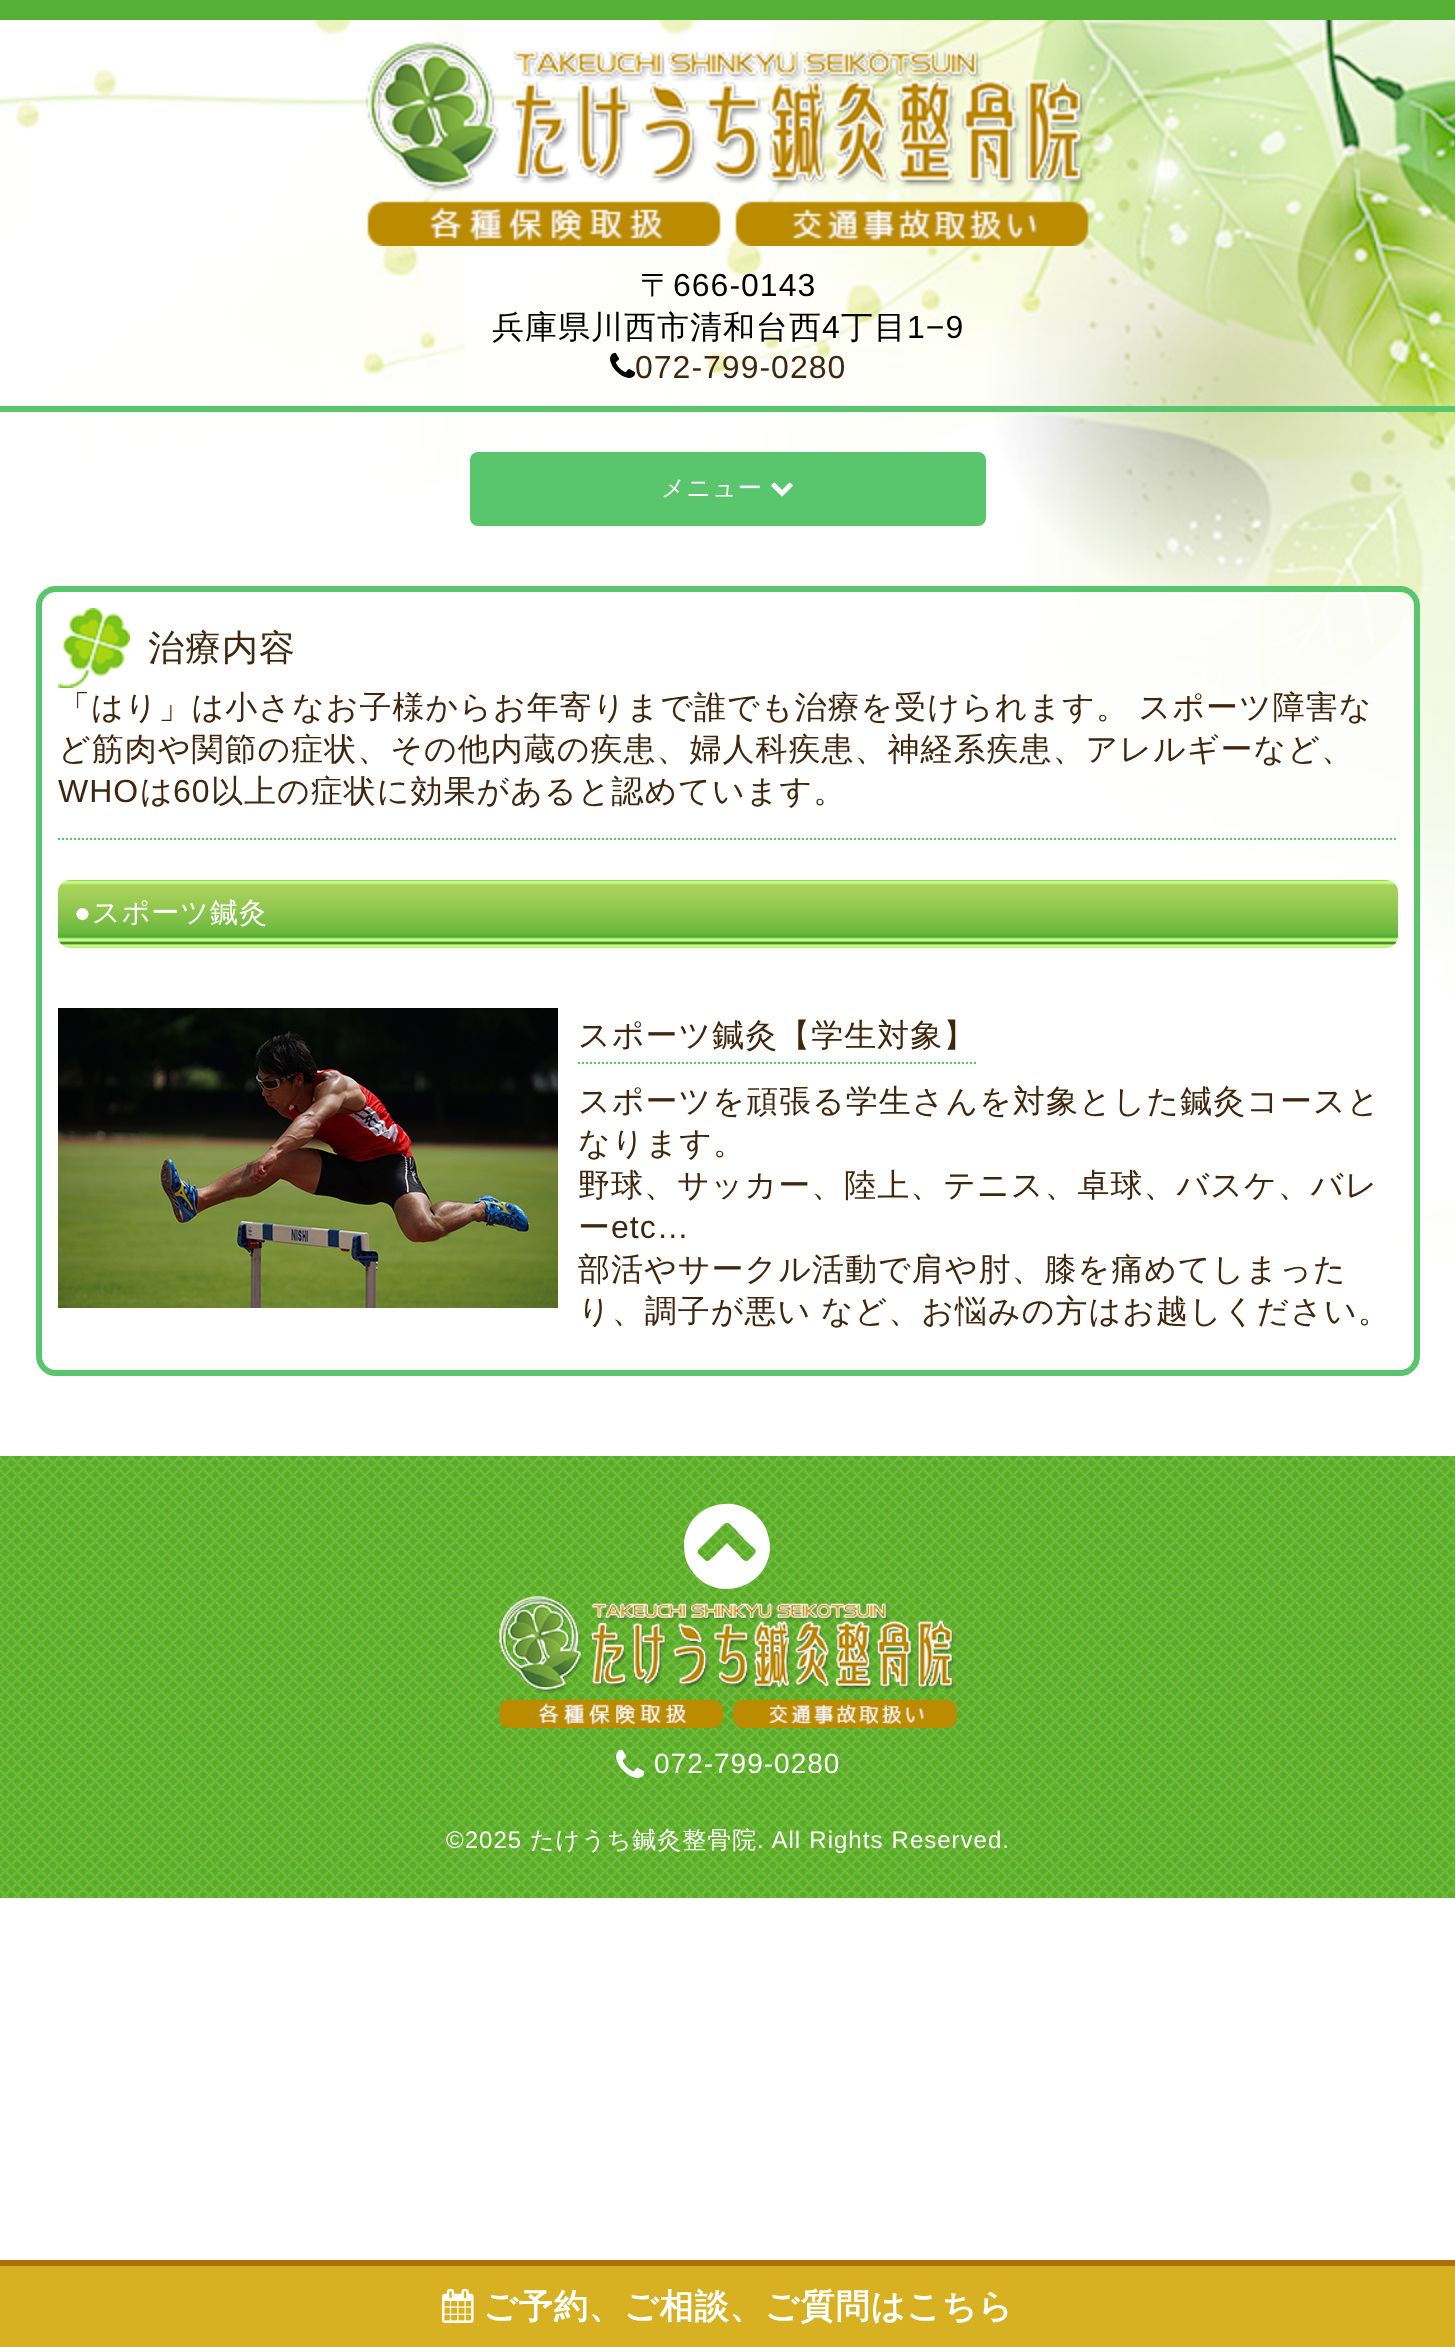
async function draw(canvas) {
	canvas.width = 1455;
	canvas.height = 2347;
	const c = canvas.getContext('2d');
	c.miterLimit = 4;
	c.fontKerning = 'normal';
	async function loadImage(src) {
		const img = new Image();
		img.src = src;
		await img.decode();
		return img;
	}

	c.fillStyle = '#fff';
	c.fillRect(0, 0, 1455, 2347);
	c.drawImage(await loadImage('img1.png'), 0, 20, 1455, 2240);
	c.fillStyle = '#57b036';
	c.fillRect(0, 0, 1455, 20);
	c.fillStyle = '#59c56d';
	c.fillRect(0, 406, 1455, 6);
	c.drawImage(await loadImage('img2.png'), 366, 40, 723, 206);
	c.letterSpacing = '1px';
	c.font = '500 32px WenQuanYi Zen Hei';
	c.fillStyle = '#000';
	c.fillText('〒', 640, 296);
	c.font = '32px Liberation Sans';
	c.fillText('666-0143', 673, 296);
	c.font = '500 32px WenQuanYi Zen Hei';
	c.fillText('兵庫県川西市清和台西', 492, 338);
	c.font = '32px Liberation Sans';
	c.fillText('4', 822, 338);
	c.font = '500 32px WenQuanYi Zen Hei';
	c.fillText('丁目', 841, 338);
	c.font = '32px Liberation Sans';
	c.fillText('1−9', 907, 338);
	c.drawImage(await loadImage('img3.png'), 610, 352, 26, 26);
	c.fillStyle = '#3f260d';
	c.fillText('072-799-0280', 635, 378);
	c.fillStyle = '#d8b123';
	c.fillRect(0, 2266, 1455, 81);
	c.fillStyle = '#ab6f01';
	c.fillRect(0, 2260, 1455, 6);
	c.drawImage(await loadImage('img4.png'), 442, 2288, 32, 35);
	c.font = 'bold 34px WenQuanYi Zen Hei';
	c.fillStyle = '#fff';
	c.fillText('ご予約、ご相談、ご質問はこちら', 483, 2318);
	c.fillStyle = '#59c56d';
	c.beginPath();
	c.roundRect(470, 452, 516, 74, 8);
	c.fill();
	c.font = '500 24px WenQuanYi Zen Hei';
	c.fillStyle = '#fff';
	c.fillText('メニュー', 661, 496);
	c.drawImage(await loadImage('img5.png'), 771, 482, 22, 15);
	c.fillStyle = '#ffffffcc';
	c.beginPath();
	c.roundRect(39, 589, 1378, 784, 17);
	c.fill();
	c.strokeStyle = '#59c56d';
	c.lineWidth = 6;
	c.stroke();
	c.drawImage(await loadImage('img6.png'), 58, 608, 72, 80);
	c.font = '500 36px WenQuanYi Zen Hei';
	c.fillStyle = '#3f260d';
	c.fillText('治療内容', 148, 660);
	c.wordSpacing = '-1px';
	c.font = '500 32px WenQuanYi Zen Hei';
	c.fillText('「はり」は小さなお子様からお年寄りまで誰でも治療を受けられます。 スポーツ障害な', 58, 718);
	c.wordSpacing = '0px';
	c.fillText('ど筋肉や関節の症状、その他内蔵の疾患、婦人科疾患、神経系疾患、アレルギーなど、', 58, 760);
	c.font = '32px Liberation Sans';
	c.fillText('WHO', 58, 802);
	c.font = '500 32px WenQuanYi Zen Hei';
	c.fillText('は', 140, 802);
	c.font = '32px Liberation Sans';
	c.fillText('60', 173, 802);
	c.font = '500 32px WenQuanYi Zen Hei';
	c.fillText('以上の症状に効果があると認めています。', 211, 802);
	c.beginPath();
	c.moveTo(58, 839);
	c.lineTo(1398, 839);
	c.lineWidth = 2;
	c.setLineDash([2, 2]);
	c.stroke();
	c.drawImage(await loadImage('img7.png'), 58, 880, 1340, 68);
	c.font = '28px Liberation Sans';
	c.fillStyle = '#fff';
	c.fillText('●', 74, 922);
	c.font = '500 28px WenQuanYi Zen Hei';
	c.fillText('スポーツ鍼灸', 92, 922);
	c.drawImage(await loadImage('img8.png'), 58, 1008, 500, 300);
	c.font = '500 32px WenQuanYi Zen Hei';
	c.fillStyle = '#3f260d';
	c.fillText('スポーツ鍼灸【学生対象】', 578, 1046);
	c.beginPath();
	c.moveTo(578, 1063);
	c.lineTo(976, 1063);
	c.stroke();
	for (const [text, x, y] of [
		['スポーツを頑張る学生さんを対象とした鍼灸コースと', 578, 1112],
		['なります。', 578, 1154],
		['野球、サッカー、陸上、テニス、卓球、バスケ、バレ', 578, 1196],
		['ー', 578, 1238],
	]) {
		c.fillText(text, x, y);
	}
	c.font = '32px Liberation Sans';
	c.fillText('etc…', 611, 1238);
	c.font = '500 32px WenQuanYi Zen Hei';
	c.fillText('部活やサークル活動で肩や肘、膝を痛めてしまった', 578, 1280);
	c.wordSpacing = '-1px';
	c.fillText('り、調子が悪い など、お悩みの方はお越しください。', 578, 1322);
	c.drawImage(await loadImage('img9.png'), 0, 1456, 1455, 442);
	c.fillStyle = '#fff';
	c.beginPath();
	c.moveTo(749, 1560);
	c.bezierCurveTo(759, 1550, 758, 1552, 746, 1541);
	c.lineTo(734, 1528);
	c.bezierCurveTo(727, 1521, 727, 1521, 720, 1528);
	c.lineTo(699, 1549);
	c.bezierCurveTo(696, 1552, 699, 1555, 701, 1556);
	c.bezierCurveTo(707, 1562, 707, 1563, 713, 1557);
	c.lineTo(727, 1543);
	c.lineTo(738, 1554);
	c.bezierCurveTo(740, 1556, 745, 1564, 749, 1560);
	c.closePath();
	c.moveTo(764, 1525);
	c.bezierCurveTo(768, 1532, 770, 1541, 770, 1549);
	c.bezierCurveTo(767, 1591, 711, 1604, 690, 1568);
	c.bezierCurveTo(685, 1560, 684, 1552, 684, 1543);
	c.bezierCurveTo(687, 1501, 743, 1489, 764, 1525);
	c.closePath();
	c.fill();
	c.drawImage(await loadImage('img10.png'), 498, 1596, 459, 132);
	c.drawImage(await loadImage('img11.png'), 616, 1749, 29, 29);
	c.wordSpacing = '0px';
	c.font = '28px Liberation Sans';
	c.fillText('072-799-0280', 654, 1773);
	c.font = '24px Liberation Sans';
	c.fillText('©2025', 446, 1848);
	c.font = '500 24px WenQuanYi Zen Hei';
	c.fillText('たけうち鍼灸整骨院', 530, 1848);
	c.wordSpacing = '0.5px';
	c.font = '24px Liberation Sans';
	c.fillText('. All Rights Reserved.', 757, 1848);
}

draw(document.querySelector('canvas'));
